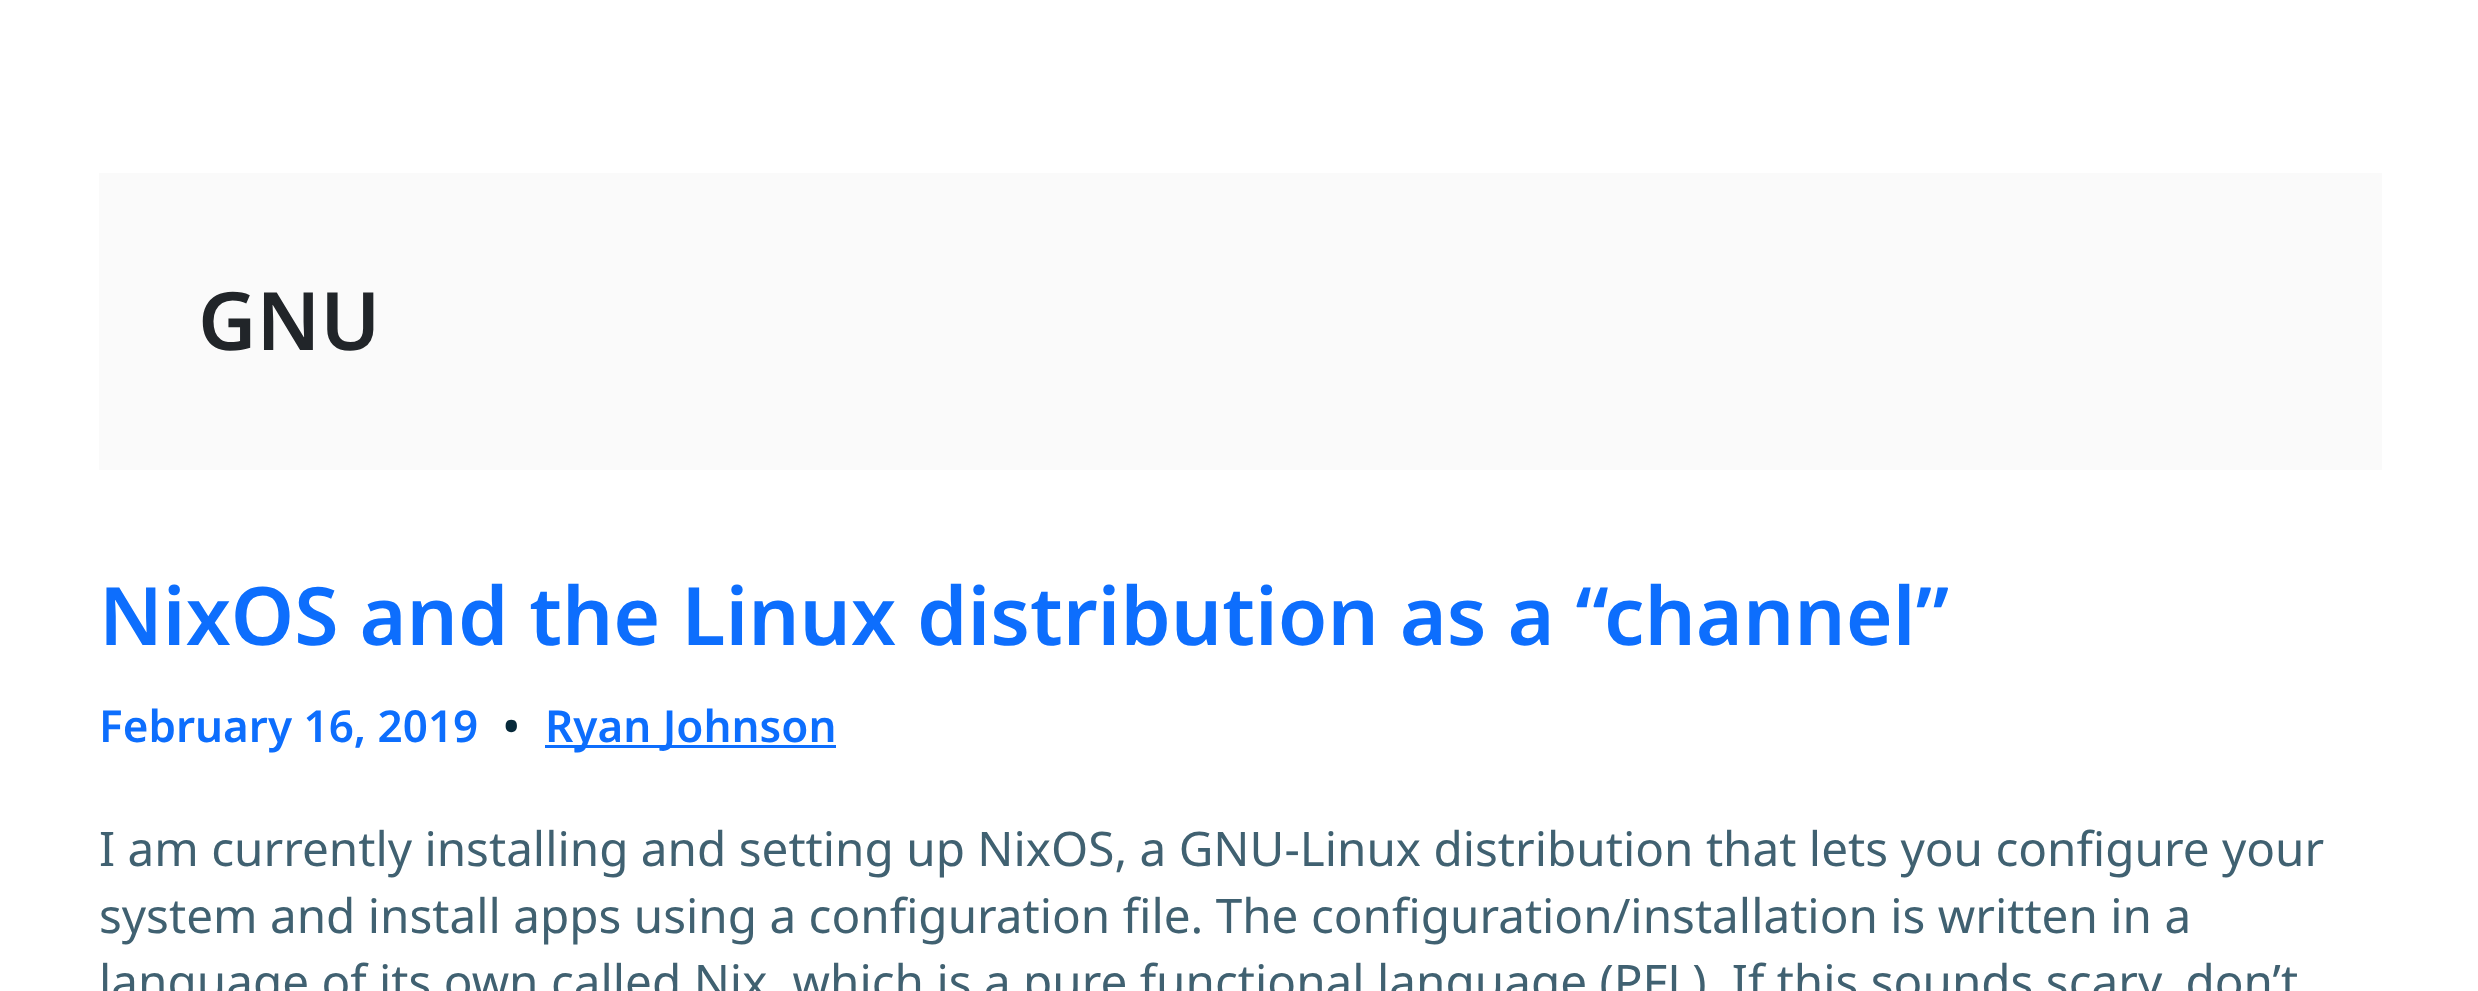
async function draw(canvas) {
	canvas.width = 2478;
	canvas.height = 991;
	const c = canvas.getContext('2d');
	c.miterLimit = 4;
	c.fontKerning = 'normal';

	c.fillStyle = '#fff';
	c.fillRect(0, 0, 2478, 991);
	c.fillStyle = '#fafafa';
	c.fillRect(99, 173, 2283, 297);
	c.font = '600 80.55px Noto Sans';
	c.fillStyle = '#212529';
	c.fillText('GNU', 198, 350);
	c.fillStyle = '#0d6efd';
	c.fillText('NixOS and the Linux distribution as a “channel”', 99, 645);
	c.font = '600 44px Noto Sans';
	c.fillText('February 16, 2019', 99, 742);
	c.fillStyle = '#07293a';
	c.fillText('•', 503, 742);
	c.fillStyle = '#0d6efd';
	c.fillRect(545, 745, 291, 3);
	c.fillText('Ryan Johnson', 545, 742);
	c.font = '47.65px Noto Sans';
	c.fillStyle = '#406171';
	for (const [text, x, y] of [
		['I am currently installing and setting up NixOS, a GNU-Linux distribution that lets you configure your', 99, 866],
		['system and install apps using a configuration file. The configuration/installation is written in a', 99, 933],
		['language of its own called Nix, which is a pure functional language (PFL). If this sounds scary, don’t', 99, 999],
	]) {
		c.fillText(text, x, y);
	}
}

draw(document.querySelector('canvas'));
